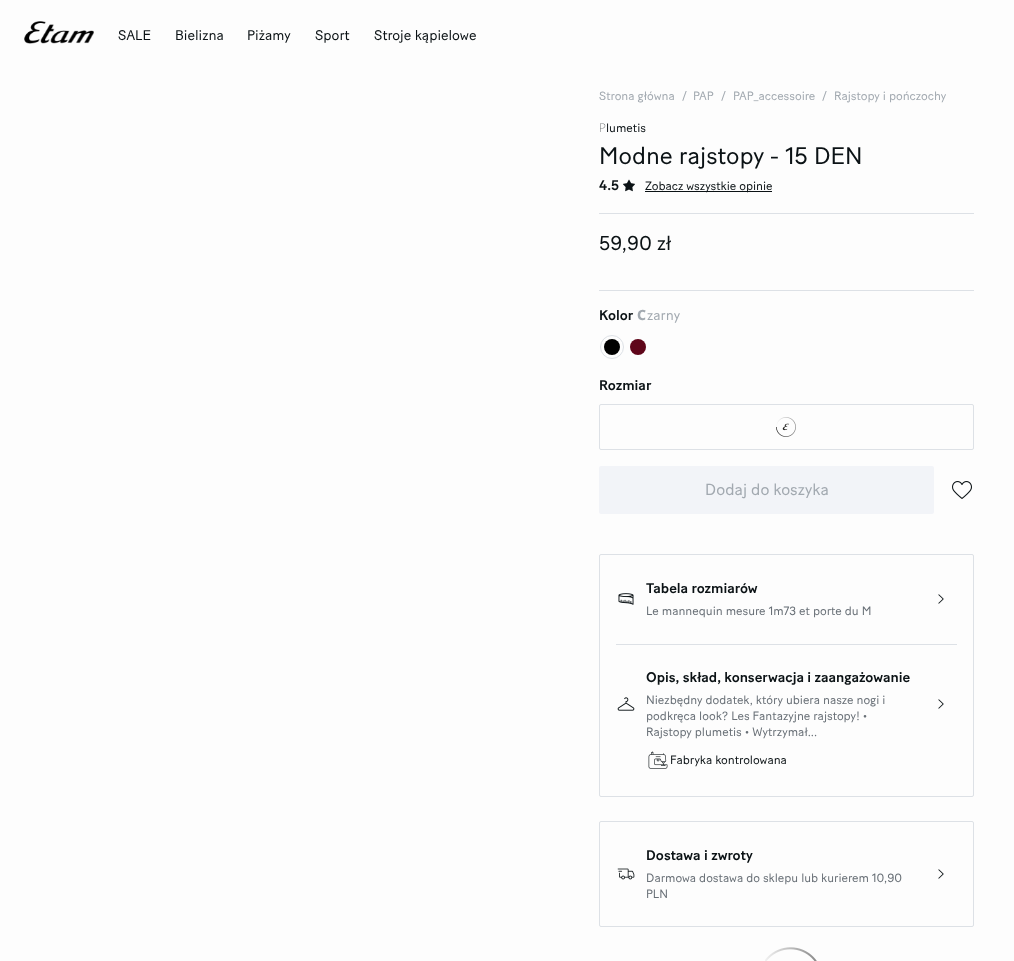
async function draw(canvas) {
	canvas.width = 1014;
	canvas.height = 961;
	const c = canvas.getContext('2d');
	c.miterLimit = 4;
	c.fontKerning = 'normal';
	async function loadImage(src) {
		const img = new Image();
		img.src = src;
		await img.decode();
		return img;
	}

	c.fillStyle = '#fdfdfd';
	c.fillRect(0, 0, 1014, 961);
	c.drawImage(await loadImage('img1.png'), 24, 21, 70, 23);
	c.font = '14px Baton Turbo';
	c.fillStyle = '#0b1215';
	for (const [text, x, y] of [
		['SALE', 118, 40],
		['Bielizna', 175, 40],
		['Piżamy', 247, 40],
		['Sport', 315, 40],
		['Stroje kąpielowe', 374, 40],
	]) {
		c.fillText(text, x, y);
	}
	c.font = '12px Baton Turbo';
	c.fillStyle = '#a2a9b0';
	for (const [text, x, y] of [
		['Strona główna', 599, 100],
		['/', 682, 100],
		['PAP', 693, 100],
		['/', 721, 100],
		['PAP_accessoire', 733, 100],
		['/', 822, 100],
		['Rajstopy i pończochy', 834, 100],
	]) {
		c.fillText(text, x, y);
	}
	c.font = '100 12px Noto Sans';
	c.fillStyle = '#0b1215';
	c.fillText('P', 599, 132);
	c.font = '12px Baton Turbo';
	c.fillText('lumetis', 606, 132);
	c.font = '24px Baton Turbo';
	c.fillText('Modne rajstopy - 15 DEN', 599, 164);
	c.font = '500 14px Baton Turbo';
	c.fillText('4.5', 599, 190);
	c.drawImage(await loadImage('img2.png'), 623, 179, 12, 13);
	c.fillRect(645, 191, 127, 1);
	c.font = '12px Baton Turbo';
	c.fillText('Zobacz wszystkie opinie', 645, 190);
	c.fillStyle = '#dde1e6';
	c.fillRect(599, 213, 375, 1);
	c.font = '20px Baton Turbo';
	c.fillStyle = '#0b1215';
	c.fillText('59,90 zł', 599, 250);
	c.fillStyle = '#dde1e6';
	c.fillRect(599, 290, 375, 1);
	c.font = '500 14px Baton Turbo';
	c.fillStyle = '#0b1215';
	c.fillText('Kolor', 599, 320);
	c.font = '800 14px Noto Sans';
	c.fillStyle = '#a2a9b0';
	c.fillText('C', 637, 320);
	c.font = '14px Baton Turbo';
	c.fillText('zarny', 647, 320);
	c.beginPath();
	c.arc(612, 347, 11.5, 0, 2 * Math.PI);
	c.strokeStyle = '#dde1e6';
	c.stroke();
	c.fillStyle = '#000';
	c.beginPath();
	c.arc(612, 347, 8, 0, 2 * Math.PI);
	c.fill();
	c.fillStyle = '#5f061a';
	c.beginPath();
	c.arc(638, 347, 8, 0, 2 * Math.PI);
	c.fill();
	c.font = '500 14px Baton Turbo';
	c.fillStyle = '#0b1215';
	c.fillText('Rozmiar', 599, 390);
	c.beginPath();
	c.roundRect(599.5, 404.5, 374, 45, 1.5);
	c.stroke();
	c.drawImage(await loadImage('img3.png'), 776, 417, 20, 20);
	c.fillStyle = '#f2f4f8';
	c.beginPath();
	c.roundRect(599, 466, 335, 48, 2);
	c.fill();
	c.font = '16px Baton Turbo';
	c.fillStyle = '#a2a9b0';
	c.fillText('Dodaj do koszyka', 705, 495);
	c.drawImage(await loadImage('img4.png'), 952, 481, 20, 18);
	c.beginPath();
	c.roundRect(599.5, 554.5, 374, 242, 1.5);
	c.stroke();
	c.drawImage(await loadImage('img5.png'), 618, 593, 16, 12);
	c.font = '500 14px Baton Turbo';
	c.fillStyle = '#0b1215';
	c.fillText('Tabela rozmiarów', 646, 593);
	c.font = '12px Baton Turbo';
	c.fillStyle = '#697077';
	c.fillText('Le mannequin mesure 1m73 et porte du M', 646, 615);
	c.drawImage(await loadImage('img6.png'), 938, 594, 6, 10);
	c.fillStyle = '#dde1e6';
	c.fillRect(616, 644, 341, 1);
	c.drawImage(await loadImage('img7.png'), 617, 697, 18, 14);
	c.font = '500 14px Baton Turbo';
	c.fillStyle = '#0b1215';
	c.fillText('Opis, skład, konserwacja i zaangażowanie', 646, 682);
	c.font = '12px Baton Turbo';
	c.fillStyle = '#697077';
	for (const [text, x, y] of [
		['Niezbędny dodatek, który ubiera nasze nogi i', 646, 704],
		['podkręca look? Les Fantazyjne rajstopy! •', 646, 720],
		['Rajstopy plumetis • Wytrzymał...', 646, 736],
	]) {
		c.fillText(text, x, y);
	}
	c.drawImage(await loadImage('img6.png'), 938, 699, 6, 10);
	c.drawImage(await loadImage('img8.png'), 648, 751, 20, 18);
	c.fillStyle = '#0b1215';
	c.fillText('Fabryka kontrolowana', 670, 764);
	c.beginPath();
	c.roundRect(599.5, 821.5, 374, 105, 1.5);
	c.stroke();
	c.drawImage(await loadImage('img9.png'), 617, 868, 18, 12);
	c.font = '500 14px Baton Turbo';
	c.fillText('Dostawa i zwroty', 646, 860);
	c.font = '12px Baton Turbo';
	c.fillStyle = '#697077';
	c.fillText('Darmowa dostawa do sklepu lub kurierem 10,90', 646, 882);
	c.fillText('PLN', 646, 898);
	c.drawImage(await loadImage('img6.png'), 938, 869, 6, 10);
	c.drawImage(await loadImage('img10.png'), 765, 947, 52, 14);
}

draw(document.querySelector('canvas'));
